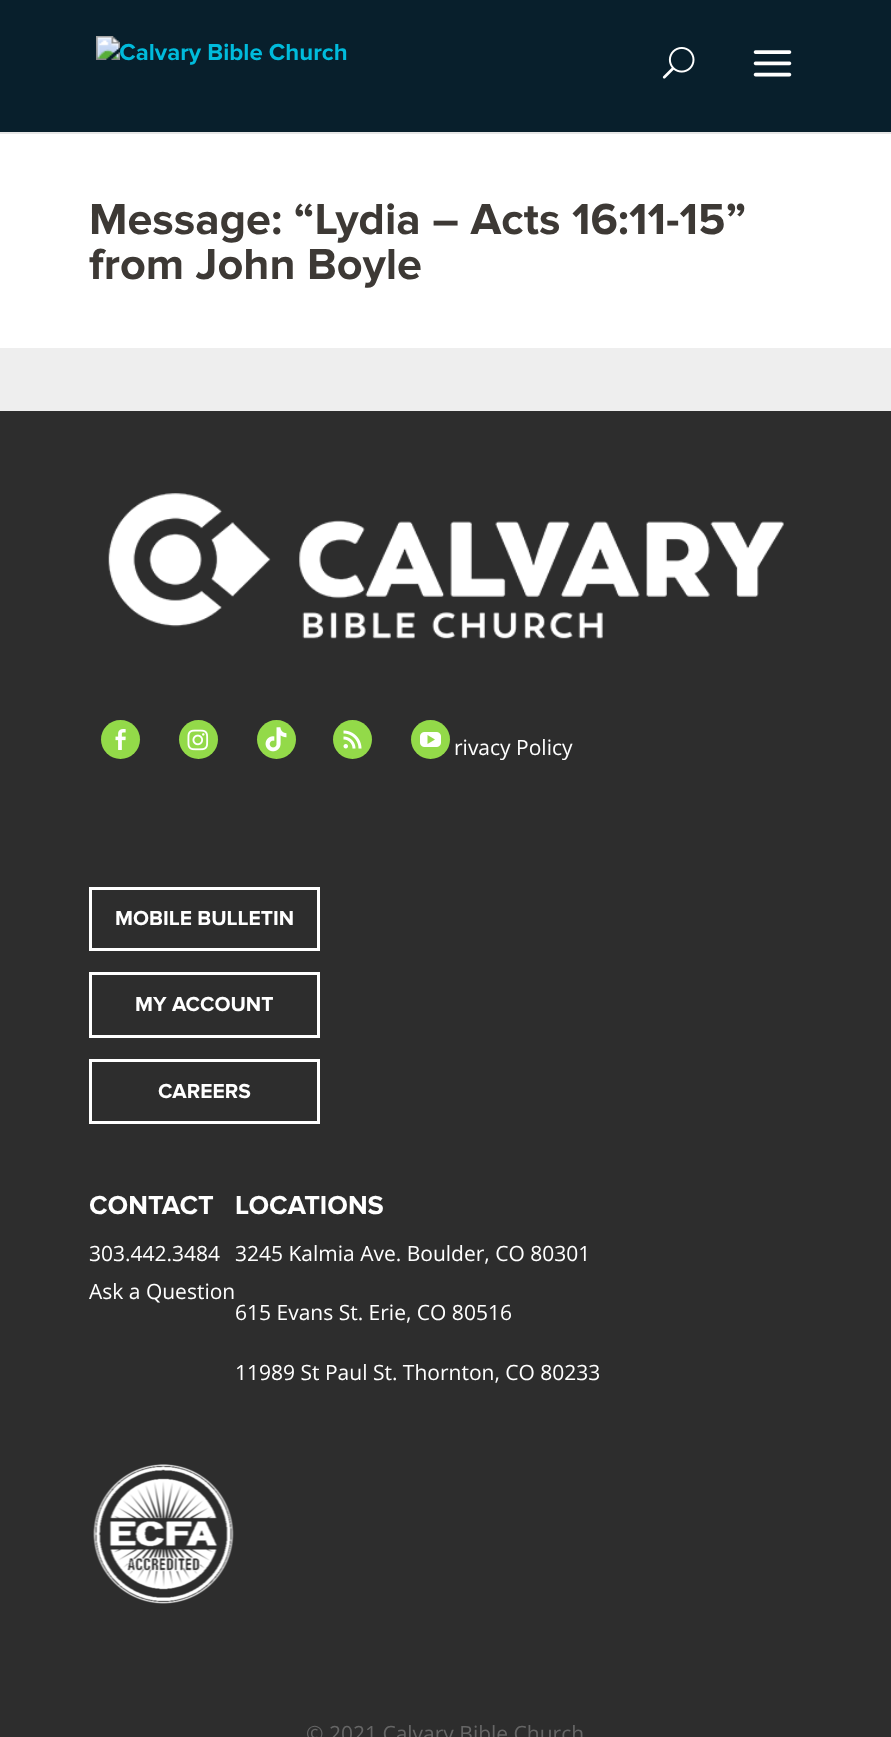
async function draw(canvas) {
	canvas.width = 891;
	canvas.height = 1737;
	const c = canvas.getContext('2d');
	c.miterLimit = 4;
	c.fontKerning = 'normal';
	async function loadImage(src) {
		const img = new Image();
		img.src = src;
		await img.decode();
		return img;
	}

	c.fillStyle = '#eee';
	c.fillRect(0, 0, 891, 1737);
	c.fillStyle = '#e6e6e6';
	c.fillRect(0, 132, 891, 2);
	c.fillStyle = '#081f2c';
	c.fillRect(0, 0, 891, 132);
	c.drawImage(await loadImage('img1.png'), 96, 36, 251, 29);
	c.drawImage(await loadImage('img2.png'), 662, 47, 33, 32);
	c.drawImage(await loadImage('img3.png'), 753, 50, 39, 27);
	c.fillStyle = '#fff';
	c.fillRect(0, 134, 891, 214);
	c.font = 'bold 45px Proxima Nova';
	c.fillStyle = '#3d3935';
	c.fillText('Message: “Lydia – Acts 16:11-15”', 89, 234);
	c.fillText('from John Boyle', 89, 279);
	c.fillStyle = '#2d2d2d';
	c.fillRect(0, 411, 891, 1326);
	c.drawImage(await loadImage('img4.png'), 108, 493, 676, 146);
	c.fillStyle = '#93da49';
	c.beginPath();
	c.arc(120.5, 739.5, 19.5, 0, 2 * Math.PI);
	c.fill();
	c.drawImage(await loadImage('img5.png'), 115, 729, 11, 21);
	c.beginPath();
	c.arc(198.5, 739.5, 19.5, 0, 2 * Math.PI);
	c.fill();
	c.drawImage(await loadImage('img6.png'), 187, 729, 22, 22);
	c.beginPath();
	c.arc(276.5, 739.5, 19.5, 0, 2 * Math.PI);
	c.fill();
	c.drawImage(await loadImage('img7.png'), 265, 727, 22, 25);
	c.beginPath();
	c.arc(352.5, 739.5, 19.5, 0, 2 * Math.PI);
	c.fill();
	c.drawImage(await loadImage('img8.png'), 343, 730, 19, 19);
	c.beginPath();
	c.arc(430.5, 739.5, 19.5, 0, 2 * Math.PI);
	c.fill();
	c.drawImage(await loadImage('img9.png'), 420, 732, 21, 15);
	c.font = '21px Open Sans';
	c.fillStyle = '#fff';
	c.fillText('rivacy Policy', 454, 755);
	c.strokeStyle = '#fff';
	c.lineWidth = 3;
	c.strokeRect(90.5, 888.5, 228, 61);
	c.font = 'bold 21px Proxima Nova';
	c.fillText('MOBILE BULLETIN', 115, 925);
	c.strokeRect(90.5, 973.5, 228, 63);
	c.fillText('MY ACCOUNT', 135, 1011);
	c.strokeRect(90.5, 1060.5, 228, 62);
	c.fillText('CAREERS', 158, 1098);
	c.font = 'bold 27px Proxima Nova';
	c.fillText('CONTACT', 89, 1214);
	c.font = '21px Open Sans';
	c.fillText('303.442.3484', 89, 1261);
	c.fillText('Ask a Question', 89, 1299);
	c.font = 'bold 27px Proxima Nova';
	c.fillText('LOCATIONS', 235, 1214);
	c.font = '21px Open Sans';
	for (const [text, x, y] of [
		['3245 Kalmia Ave. Boulder, CO 80301', 235, 1261],
		['615 Evans St. Erie, CO 80516', 235, 1320],
		['11989 St Paul St. Thornton, CO 80233', 235, 1380],
	]) {
		c.fillText(text, x, y);
	}
	c.drawImage(await loadImage('img10.png'), 93, 1464, 141, 140);
	c.fillStyle = '#666';
	c.fillText('© 2021 Calvary Bible Church', 306, 1741);
}

draw(document.querySelector('canvas'));
